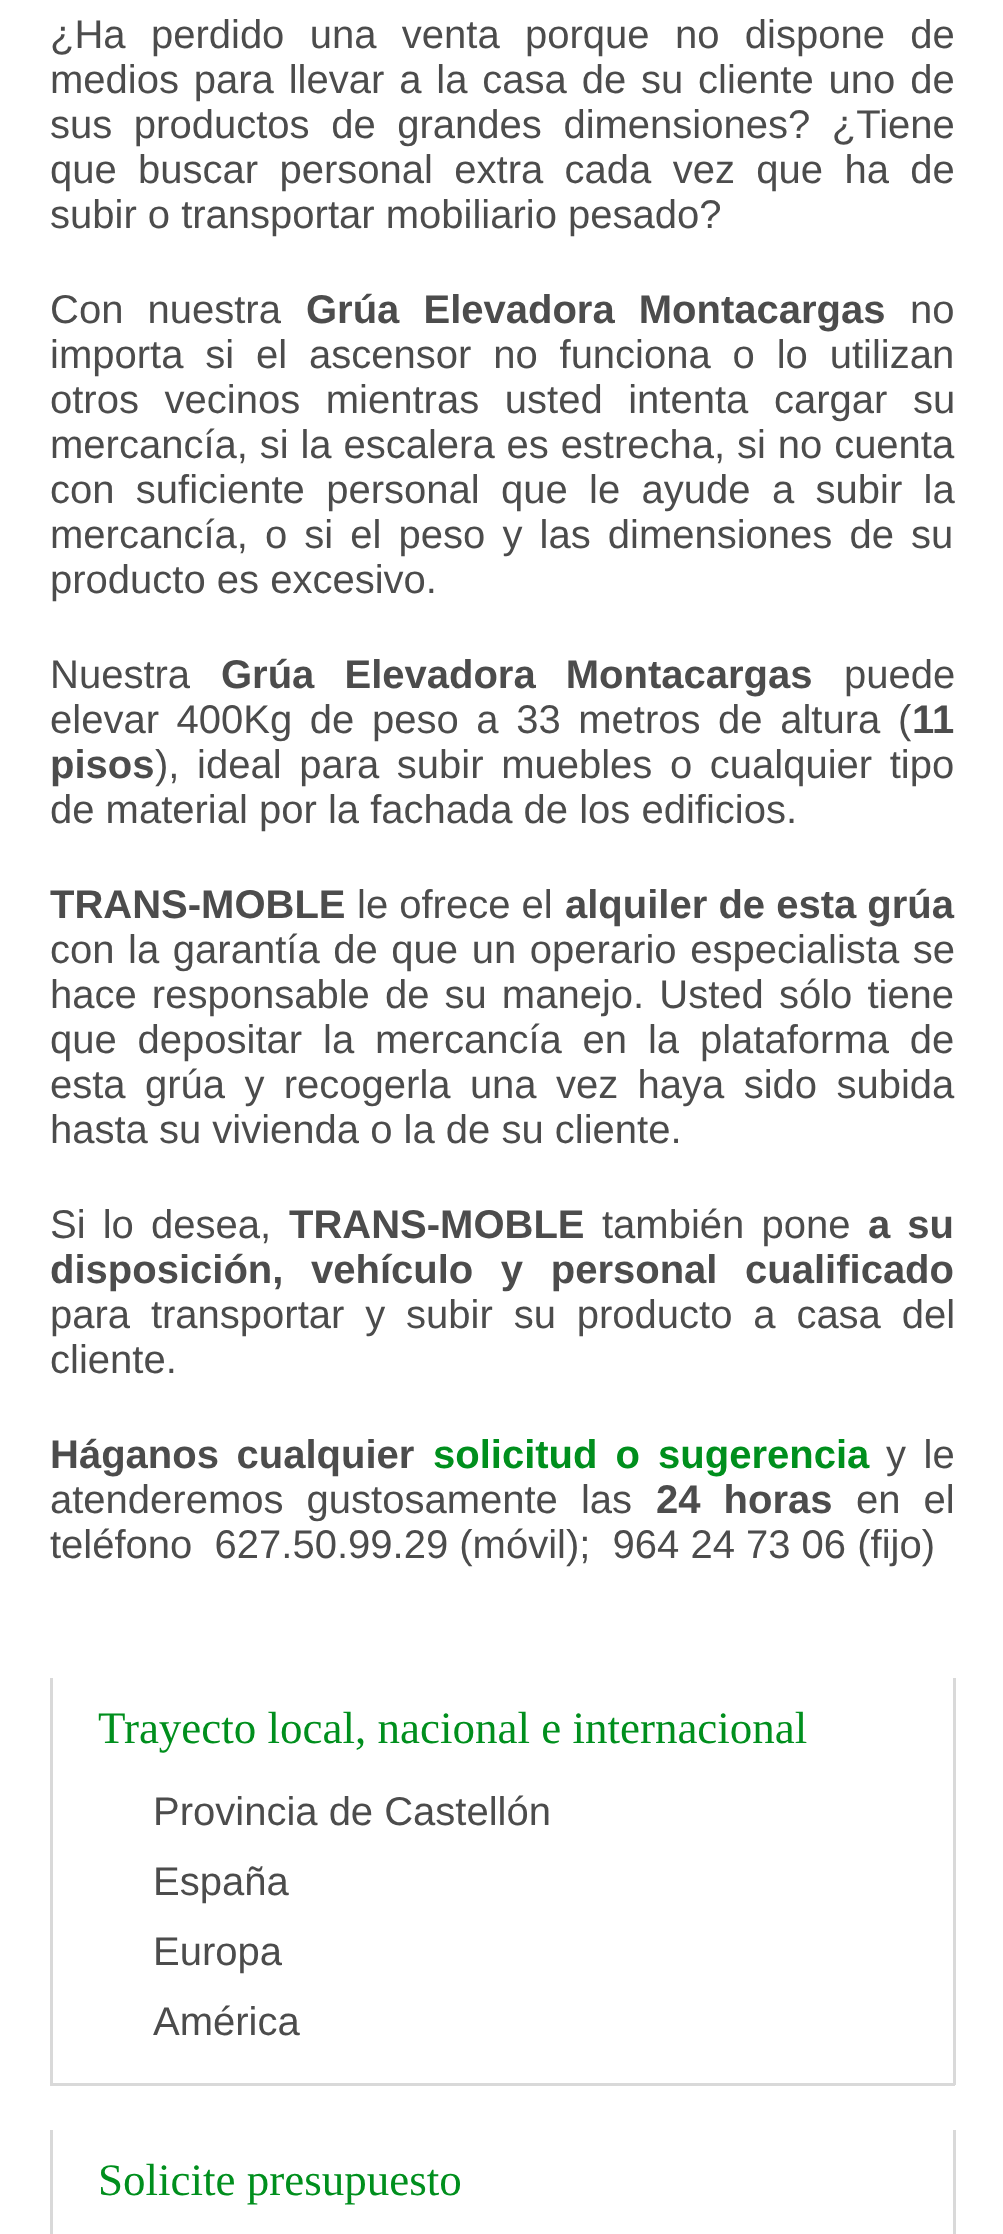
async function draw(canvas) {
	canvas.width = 1003;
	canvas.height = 2234;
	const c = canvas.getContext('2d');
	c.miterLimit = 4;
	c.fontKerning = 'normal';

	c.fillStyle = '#fff';
	c.fillRect(0, 0, 1003, 2234);
	c.wordSpacing = '14.25px';
	c.font = '40px Liberation Sans';
	c.fillStyle = '#4c4c4c';
	c.fillText('¿Ha perdido una venta porque no dispone de', 50, 48);
	c.wordSpacing = '3.75px';
	c.fillText('medios para llevar a la casa de su cliente uno de', 50, 93);
	c.wordSpacing = '10.5px';
	c.fillText('sus productos de grandes dimensiones? ¿Tiene', 50, 138);
	c.wordSpacing = '10.25px';
	c.fillText('que buscar personal extra cada vez que ha de', 50, 183);
	c.wordSpacing = '0px';
	c.fillText('subir o transportar mobiliario pesado?', 50, 228);
	c.wordSpacing = '13px';
	c.fillText('Con nuestra', 50, 323);
	c.font = 'bold 40px Liberation Sans';
	c.fillText('Grúa Elevadora Montacargas', 306, 323);
	c.wordSpacing = '0px';
	c.font = '40px Liberation Sans';
	c.fillText('no', 910, 323);
	c.wordSpacing = '10.75px';
	c.fillText('importa si el ascensor no funciona o lo utilizan', 50, 368);
	c.wordSpacing = '14.5px';
	c.fillText('otros vecinos mientras usted intenta cargar su', 50, 413);
	c.wordSpacing = '0.75px';
	c.fillText('mercancía, si la escalera es estrecha, si no cuenta', 50, 458);
	c.wordSpacing = '10.25px';
	c.fillText('con suficiente personal que le ayude a subir la', 50, 503);
	c.wordSpacing = '6px';
	c.fillText('mercancía, o si el peso y las dimensiones de su', 50, 548);
	c.wordSpacing = '0px';
	c.fillText('producto es excesivo.', 50, 593);
	c.fillText('Nuestra', 50, 688);
	c.wordSpacing = '19px';
	c.font = 'bold 40px Liberation Sans';
	c.fillText('Grúa Elevadora Montacargas', 221, 688);
	c.wordSpacing = '0px';
	c.font = '40px Liberation Sans';
	c.fillText('puede', 844, 688);
	c.wordSpacing = '6.5px';
	c.fillText('elevar 400Kg de peso a 33 metros de altura (', 50, 733);
	c.wordSpacing = '0px';
	c.font = 'bold 40px Liberation Sans';
	c.fillText('11', 912, 733);
	c.fillText('pisos', 50, 778);
	c.wordSpacing = '6.5px';
	c.font = '40px Liberation Sans';
	c.fillText('), ideal para subir muebles o cualquier tipo', 155, 778);
	c.wordSpacing = '0px';
	c.fillText('de material por la fachada de los edificios.', 50, 823);
	c.font = 'bold 40px Liberation Sans';
	c.fillText('TRANS-MOBLE', 50, 918);
	c.font = '40px Liberation Sans';
	c.fillText('le ofrece el', 357, 918);
	c.font = 'bold 40px Liberation Sans';
	c.fillText('alquiler de esta grúa', 565, 918);
	c.wordSpacing = '2.5px';
	c.font = '40px Liberation Sans';
	c.fillText('con la garantía de que un operario especialista se', 50, 963);
	c.wordSpacing = '4px';
	c.fillText('hace responsable de su manejo. Usted sólo tiene', 50, 1008);
	c.wordSpacing = '9.75px';
	c.fillText('que depositar la mercancía en la plataforma de', 50, 1053);
	c.wordSpacing = '8.25px';
	c.fillText('esta grúa y recogerla una vez haya sido subida', 50, 1098);
	c.wordSpacing = '0px';
	c.fillText('hasta su vivienda o la de su cliente.', 50, 1143);
	c.wordSpacing = '6px';
	c.fillText('Si lo desea,', 50, 1238);
	c.wordSpacing = '0px';
	c.font = 'bold 40px Liberation Sans';
	c.fillText('TRANS-MOBLE', 289, 1238);
	c.wordSpacing = '6px';
	c.font = '40px Liberation Sans';
	c.fillText('también pone', 602, 1238);
	c.font = 'bold 40px Liberation Sans';
	c.fillText('a su', 868, 1238);
	c.wordSpacing = '16.5px';
	c.fillText('disposición, vehículo y personal cualificado', 50, 1283);
	c.wordSpacing = '9.75px';
	c.font = '40px Liberation Sans';
	c.fillText('para transportar y subir su producto a casa del', 50, 1328);
	c.wordSpacing = '0px';
	c.fillText('cliente.', 50, 1373);
	c.wordSpacing = '6.5px';
	c.font = 'bold 40px Liberation Sans';
	c.fillText('Háganos cualquier', 50, 1468);
	c.wordSpacing = '7px';
	c.fillStyle = '#008f1d';
	c.fillText('solicitud o sugerencia', 433, 1468);
	c.wordSpacing = '6.5px';
	c.font = '40px Liberation Sans';
	c.fillStyle = '#4c4c4c';
	c.fillText('y le', 886, 1468);
	c.wordSpacing = '12px';
	c.fillText('atenderemos gustosamente las', 50, 1513);
	c.font = 'bold 40px Liberation Sans';
	c.fillText('24 horas', 656, 1513);
	c.font = '40px Liberation Sans';
	c.fillText('en el', 856, 1513);
	c.wordSpacing = '0px';
	c.fillText('teléfono  627.50.99.29 (móvil);  964 24 73 06 (fijo)', 50, 1558);
	for (const [x, y, w, h, color] of [
		[953, 1678, 3, 407, '#d9d9d9'],
		[50, 2083, 905, 3, '#d9d9d9'],
		[50, 1678, 3, 407, '#d9d9d9'],
	]) {
		c.fillStyle = color;
		c.fillRect(x, y, w, h);
	}
	c.font = '45px Liberation Serif';
	c.fillStyle = '#008f1d';
	c.fillText('Trayecto local, nacional e internacional', 98, 1743);
	c.font = '40px Liberation Sans';
	c.fillStyle = '#4c4c4c';
	for (const [text, x, y] of [
		['Provincia de Castellón', 153, 1825],
		['España', 153, 1895],
		['Europa', 153, 1965],
		['América', 153, 2035],
	]) {
		c.fillText(text, x, y);
	}
	c.fillStyle = '#d9d9d9';
	c.fillRect(953, 2130, 3, 104);
	c.fillRect(50, 2130, 3, 104);
	c.font = '45px Liberation Serif';
	c.fillStyle = '#008f1d';
	c.fillText('Solicite presupuesto', 98, 2195);
}

draw(document.querySelector('canvas'));
